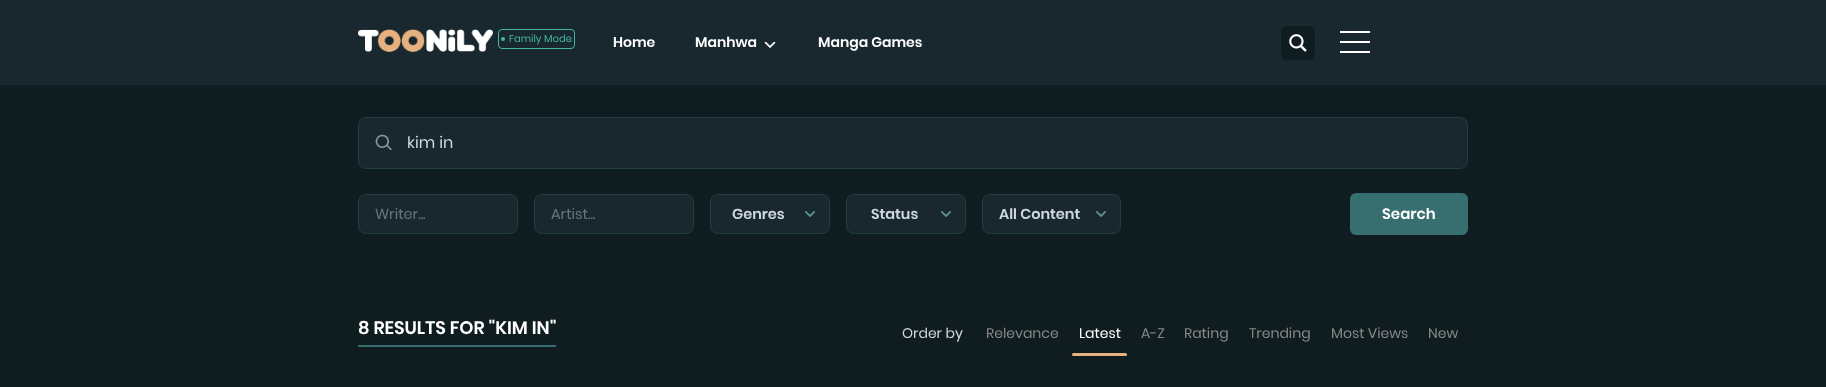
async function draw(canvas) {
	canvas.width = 1826;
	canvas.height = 387;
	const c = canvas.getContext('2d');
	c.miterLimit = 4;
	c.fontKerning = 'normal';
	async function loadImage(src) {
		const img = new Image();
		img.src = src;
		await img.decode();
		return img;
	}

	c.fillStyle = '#0f1c20';
	c.fillRect(0, 0, 1826, 387);
	c.fillStyle = '#18282e';
	c.fillRect(0, 0, 1826, 85);
	c.drawImage(await loadImage('img1.png'), 358, 29, 135, 27);
	c.beginPath();
	c.roundRect(498.5, 29.5, 76, 19, 3.5);
	c.strokeStyle = '#46b5a5';
	c.stroke();
	c.fillStyle = '#46b5a5';
	c.beginPath();
	c.arc(503, 39, 2, 0, 2 * Math.PI);
	c.fill();
	c.font = '10px Poppins';
	c.fillText('Family Mode', 509, 42);
	c.font = '600 14px Poppins';
	c.fillStyle = '#fff';
	c.fillText('Home', 613, 47);
	c.fillText('Manhwa', 695, 47);
	c.drawImage(await loadImage('img2.png'), 764, 41, 12, 7);
	c.fillText('Manga Games', 818, 47);
	c.fillStyle = '#0f1c20';
	c.beginPath();
	c.roundRect(1281, 26, 34, 34, 6);
	c.fill();
	c.drawImage(await loadImage('img3.png'), 1289, 34, 18, 18);
	for (const [x, y, w, h, color] of [
		[1340, 31, 30, 2, '#fff'],
		[1340, 41, 30, 2, '#fff'],
		[1340, 51, 30, 2, '#fff'],
	]) {
		c.fillStyle = color;
		c.fillRect(x, y, w, h);
	}
	c.fillStyle = '#18282e';
	c.beginPath();
	c.roundRect(358, 117, 1110, 52, 8);
	c.fill();
	c.beginPath();
	c.roundRect(358.5, 117.5, 1109, 51, 7.5);
	c.strokeStyle = '#376e6f4d';
	c.stroke();
	c.drawImage(await loadImage('img4.png'), 375, 134, 17, 17);
	c.font = '16px Poppins';
	c.fillStyle = '#cfd8dc';
	c.fillText('kim in', 407, 148);
	c.fillStyle = '#18282e';
	c.beginPath();
	c.roundRect(358, 194, 160, 40, 8);
	c.fill();
	c.beginPath();
	c.roundRect(358.5, 194.5, 159, 39, 7.5);
	c.stroke();
	c.font = '14.5px Poppins';
	c.fillStyle = '#6b7280';
	c.fillText('Writer...', 375, 219);
	c.fillStyle = '#18282e';
	c.beginPath();
	c.roundRect(534, 194, 160, 40, 8);
	c.fill();
	c.beginPath();
	c.roundRect(534.5, 194.5, 159, 39, 7.5);
	c.stroke();
	c.fillStyle = '#6b7280';
	c.fillText('Artist...', 551, 219);
	c.fillStyle = '#18282e';
	c.beginPath();
	c.roundRect(710, 194, 120, 40, 8);
	c.fill();
	c.beginPath();
	c.roundRect(710.5, 194.5, 119, 39, 7.5);
	c.stroke();
	c.font = '600 14.5px Poppins';
	c.fillStyle = '#cfd8dc';
	c.fillText('Genres', 732, 219);
	c.drawImage(await loadImage('img5.png'), 805, 211, 10, 6);
	c.fillStyle = '#18282e';
	c.beginPath();
	c.roundRect(846, 194, 120, 40, 8);
	c.fill();
	c.beginPath();
	c.roundRect(846.5, 194.5, 119, 39, 7.5);
	c.stroke();
	c.fillStyle = '#cfd8dc';
	c.fillText('Status', 871, 219);
	c.drawImage(await loadImage('img5.png'), 941, 211, 10, 6);
	c.fillStyle = '#18282e';
	c.beginPath();
	c.roundRect(982, 194, 139, 40, 8);
	c.fill();
	c.beginPath();
	c.roundRect(982.5, 194.5, 138, 39, 7.5);
	c.stroke();
	c.fillStyle = '#cfd8dc';
	c.fillText('All Content', 999, 219);
	c.drawImage(await loadImage('img5.png'), 1096, 211, 10, 6);
	c.fillStyle = '#376e6f';
	c.beginPath();
	c.roundRect(1350, 193, 118, 42, 6);
	c.fill();
	c.font = '600 15px Poppins';
	c.fillStyle = '#fff';
	c.fillText('Search', 1382, 219);
	c.fillStyle = '#376e6f';
	c.fillRect(358, 345, 198, 2);
	c.font = '600 18px Poppins';
	c.fillStyle = '#fff';
	c.fillText('8 RESULTS FOR "KIM IN"', 358, 334);
	c.font = '14px Poppins';
	c.fillStyle = '#cfd8dc';
	c.fillText('Order by', 902, 338);
	c.fillStyle = '#888';
	c.fillText('Relevance', 986, 338);
	c.fillStyle = '#fff';
	c.fillText('Latest', 1079, 338);
	c.fillStyle = '#e6b17e';
	c.beginPath();
	c.roundRect(1072, 353, 55, 3, 1.5);
	c.fill();
	c.fillStyle = '#888';
	for (const [text, x, y] of [
		['A-Z', 1141, 338],
		['Rating', 1184, 338],
		['Trending', 1249, 338],
		['Most Views', 1331, 338],
		['New', 1428, 338],
	]) {
		c.fillText(text, x, y);
	}
}

draw(document.querySelector('canvas'));
